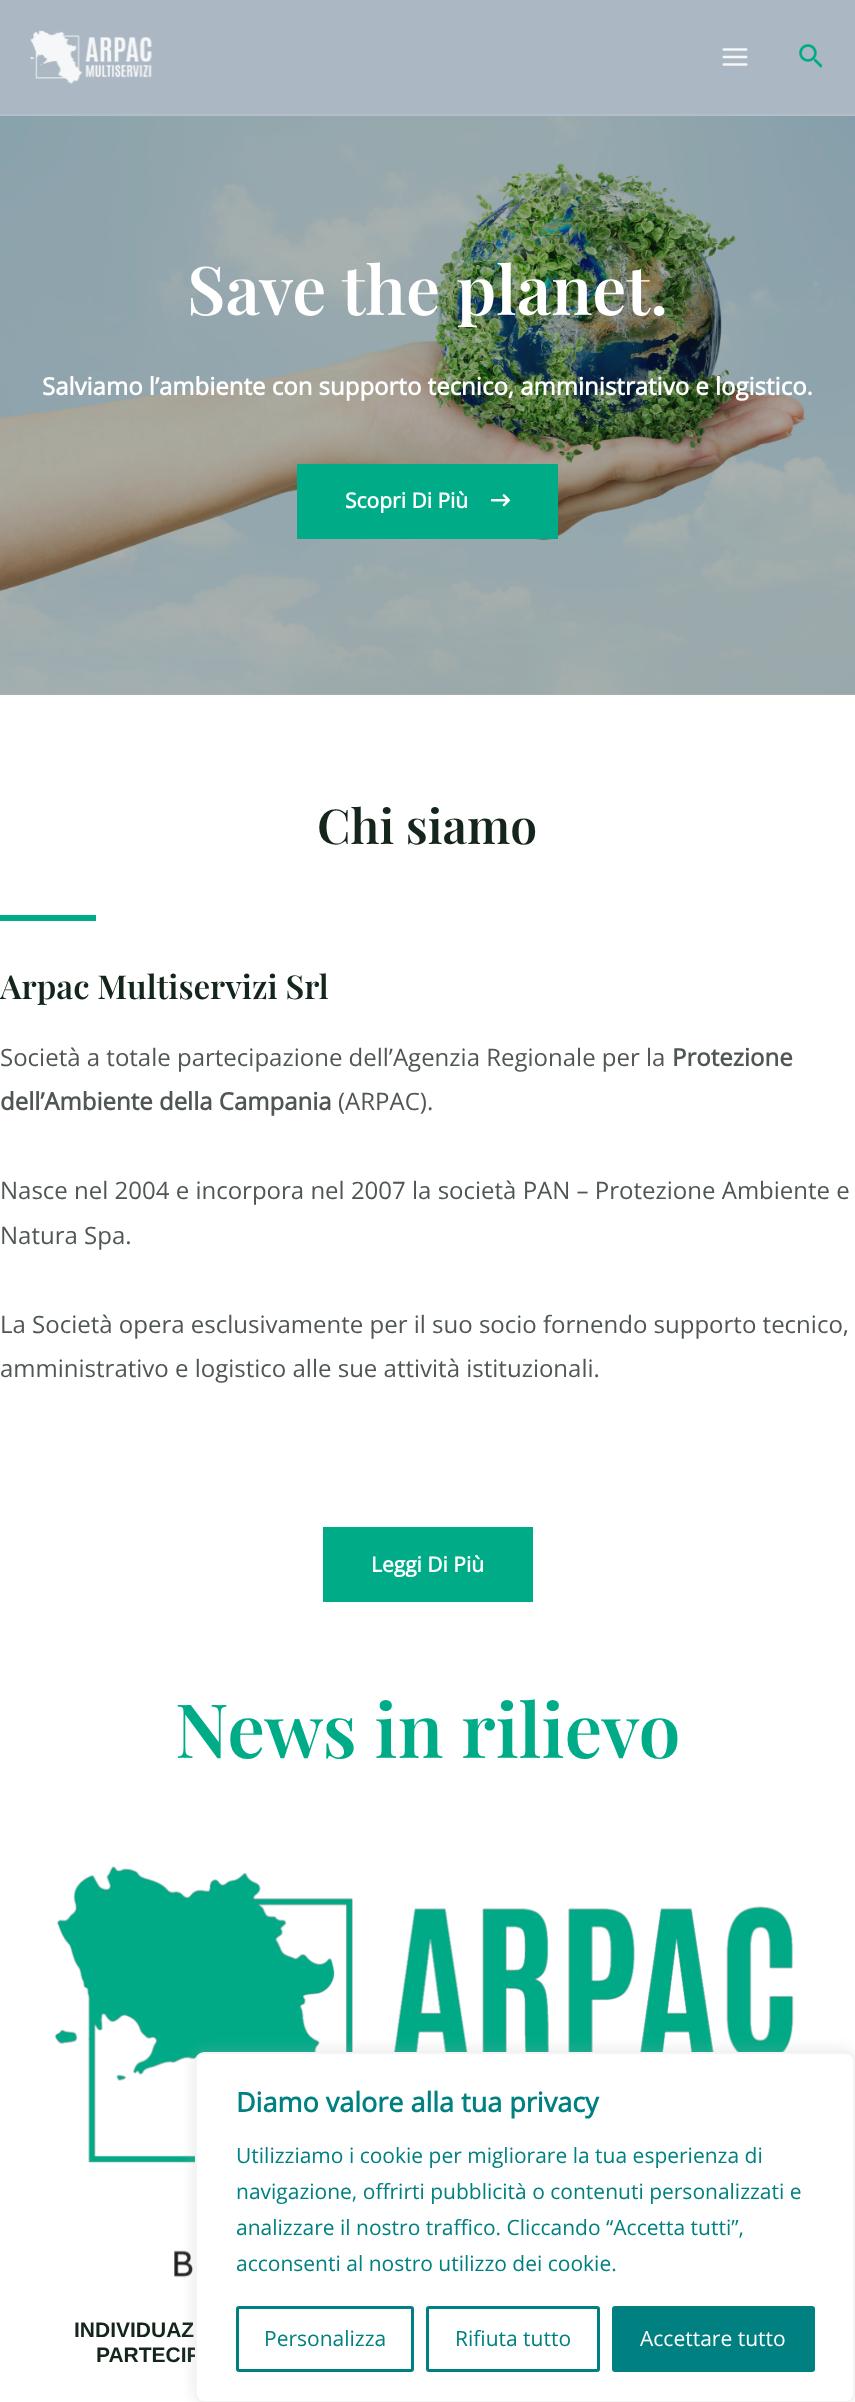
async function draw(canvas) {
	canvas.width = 855;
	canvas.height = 2402;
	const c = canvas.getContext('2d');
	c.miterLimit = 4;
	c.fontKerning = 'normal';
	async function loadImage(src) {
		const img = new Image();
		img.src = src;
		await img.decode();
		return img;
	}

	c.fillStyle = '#fff';
	c.fillRect(0, 0, 855, 2402);
	c.fillStyle = '#abb8c3';
	c.fillRect(0, 0, 855, 114);
	c.fillStyle = '#b2bec8';
	c.fillRect(0, 114, 855, 2);
	c.drawImage(await loadImage('img1.png'), 30, 30, 122, 54);
	c.drawImage(await loadImage('img2.png'), 722, 48, 26, 18);
	c.drawImage(await loadImage('img3.png'), 799, 44, 23, 24);
	c.fillStyle = '#adb3b0';
	c.fillRect(0, 694, 855, 1);
	c.drawImage(await loadImage('img4.png'), 0, 116, 855, 579);
	c.font = '600 67.5px Playfair Display';
	c.fillStyle = '#fff';
	c.fillText('Save the planet.', 187, 315);
	c.font = 'bold 24px Open Sans';
	c.fillText('Salviamo l’ambiente con supporto tecnico, amministrativo e logistico.', 42, 395);
	c.fillStyle = '#00ac87';
	c.fillRect(297, 464, 261, 75);
	c.font = 'bold 21px Open Sans';
	c.fillStyle = '#fff';
	c.fillText('Scopri Di Più', 345, 508);
	c.drawImage(await loadImage('img5.png'), 491, 494, 19, 13);
	c.font = '600 48px Playfair Display';
	c.fillStyle = '#14261c';
	c.fillText('Chi siamo', 317, 844);
	c.fillStyle = '#00ac87';
	c.fillRect(0, 915, 96, 6);
	c.font = '600 33px Playfair Display';
	c.fillStyle = '#14261c';
	c.fillText('Arpac Multiservizi Srl', 0, 999);
	c.font = '24px Open Sans';
	c.fillStyle = '#4f5655';
	c.fillText('Società a totale partecipazione dell’Agenzia Regionale per la', 0, 1066);
	c.font = 'bold 24px Open Sans';
	c.fillText('Protezione', 672, 1066);
	c.fillText('dell’Ambiente della Campania', 0, 1110);
	c.font = '24px Open Sans';
	for (const [text, x, y] of [
		['(ARPAC).', 338, 1110],
		['Nasce nel 2004 e incorpora nel 2007 la società PAN – Protezione Ambiente e', 0, 1199],
		['Natura Spa.', 0, 1244],
		['La Società opera esclusivamente per il suo socio fornendo supporto tecnico,', 0, 1333],
		['amministrativo e logistico alle sue attività istituzionali.', 0, 1377],
	]) {
		c.fillText(text, x, y);
	}
	c.fillStyle = '#00ac87';
	c.fillRect(323, 1527, 210, 75);
	c.font = 'bold 21px Open Sans';
	c.fillStyle = '#fff';
	c.fillText('Leggi Di Più', 371, 1572);
	c.font = '600 75px Playfair Display';
	c.fillStyle = '#00ac87';
	c.fillText('News in rilievo', 175, 1758);
	c.drawImage(await loadImage('img6.png'), 54, 1866, 740, 412);
	c.font = 'bold 21px Liberation Sans';
	c.fillStyle = '#14261c';
	c.fillText('INDIVIDUAZ', 74, 2337);
	c.fillText('PARTECIP', 96, 2362);
	c.fillStyle = '#acabab4d';
	c.filter = 'blur(7.5px)';
	c.beginPath();
	c.roundRect(195, 2051, 660, 351, 9);
	c.fill();
	c.filter = 'none';
	c.fillStyle = '#fff';
	c.beginPath();
	c.roundRect(196, 2053, 658, 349, 8);
	c.fill();
	c.strokeStyle = '#f4f4f4';
	c.lineWidth = 2;
	c.stroke();
	c.font = 'bold 27px Open Sans';
	c.fillStyle = '#008080';
	c.fillText('Diamo valore alla tua privacy', 236, 2112);
	c.font = '21px Open Sans';
	for (const [text, x, y] of [
		['Utilizziamo i cookie per migliorare la tua esperienza di', 236, 2163],
		['navigazione, offrirti pubblicità o contenuti personalizzati e', 236, 2199],
		['analizzare il nostro traffico. Cliccando “Accetta tutti”,', 236, 2235],
		['acconsenti al nostro utilizzo dei cookie.', 236, 2271],
	]) {
		c.fillText(text, x, y);
	}
	c.beginPath();
	c.roundRect(237.5, 2307.5, 175, 63, 1.5);
	c.strokeStyle = '#008080';
	c.lineWidth = 3;
	c.stroke();
	c.fillText('Personalizza', 264, 2346);
	c.beginPath();
	c.roundRect(427.5, 2307.5, 171, 63, 1.5);
	c.stroke();
	c.fillText('Rifiuta tutto', 455, 2346);
	c.beginPath();
	c.roundRect(613.5, 2307.5, 200, 63, 1.5);
	c.fill();
	c.stroke();
	c.fillStyle = '#fff';
	c.fillText('Accettare tutto', 640, 2346);
}

draw(document.querySelector('canvas'));
